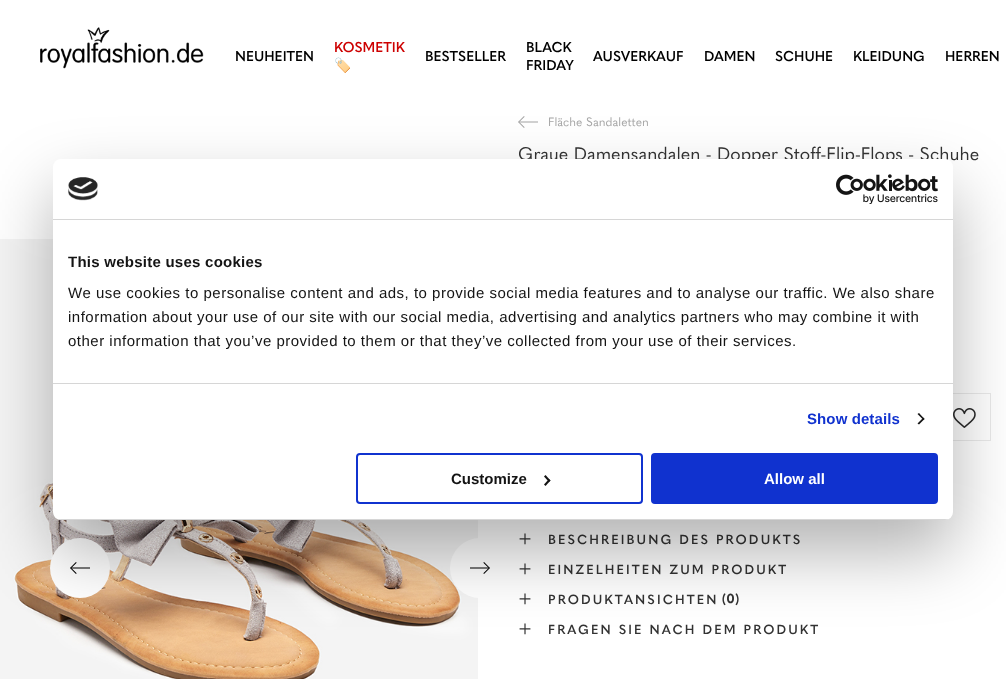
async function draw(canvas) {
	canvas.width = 1006;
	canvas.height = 679;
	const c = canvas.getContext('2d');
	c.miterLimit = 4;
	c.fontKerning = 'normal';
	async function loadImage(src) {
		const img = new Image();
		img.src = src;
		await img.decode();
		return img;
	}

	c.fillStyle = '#fff';
	c.fillRect(0, 0, 1006, 679);
	c.drawImage(await loadImage('img1.png'), 40, 27, 164, 42);
	c.font = '600 14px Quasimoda';
	c.fillStyle = '#000';
	c.fillText('NEUHEITEN', 235, 61);
	c.fillStyle = '#cd0000';
	c.fillText('KOSMETIK', 334, 52);
	c.font = 'bold 14px Noto Color Emoji';
	c.fillText('🏷️', 334, 70);
	c.font = '600 14px Quasimoda';
	c.fillStyle = '#000';
	for (const [text, x, y] of [
		['BESTSELLER', 425, 61],
		['BLACK', 526, 52],
		['FRIDAY', 526, 70],
		['AUSVERKAUF', 593, 61],
		['DAMEN', 704, 61],
		['SCHUHE', 775, 61],
		['KLEIDUNG', 853, 61],
		['HERREN', 945, 61],
	]) {
		c.fillText(text, x, y);
	}
	c.drawImage(await loadImage('img2.png'), 518, 116, 20, 12);
	c.font = '12px Quasimoda';
	c.fillStyle = '#a6a6a6';
	c.fillText('Fläche Sandaletten', 548, 126);
	c.font = '18px Quasimoda';
	c.fillStyle = '#333';
	c.fillText('Graue Damensandalen - Dopper Stoff-Flip-Flops - Schuhe', 518, 160);
	c.drawImage(await loadImage('img3.png'), 0, 239, 478, 440);
	c.fillStyle = '#fff';
	c.beginPath();
	c.arc(80, 568, 30, 0, 2 * Math.PI);
	c.fill();
	c.drawImage(await loadImage('img4.png'), 70, 562, 20, 12);
	c.beginPath();
	c.arc(480, 568, 30, 0, 2 * Math.PI);
	c.fill();
	c.drawImage(await loadImage('img5.png'), 470, 562, 20, 12);
	c.strokeStyle = '#eaeaea';
	c.strokeRect(937.5, 393.5, 53, 47);
	c.drawImage(await loadImage('img6.png'), 953, 408, 23, 20);
	c.font = '20px Quasimoda';
	c.fillStyle = '#333';
	c.fillText('+', 518, 545);
	c.letterSpacing = '2.1px';
	c.font = '600 13px Quasimoda';
	c.fillText('BESCHREIBUNG DES PRODUKTS', 548, 544);
	c.letterSpacing = '0px';
	c.font = '20px Quasimoda';
	c.fillText('+', 518, 575);
	c.letterSpacing = '2.1px';
	c.font = '600 13px Quasimoda';
	c.fillText('EINZELHEITEN ZUM PRODUKT', 548, 574);
	c.letterSpacing = '0px';
	c.font = '20px Quasimoda';
	c.fillText('+', 518, 605);
	c.letterSpacing = '2.1px';
	c.font = '600 13px Quasimoda';
	c.fillText('PRODUKTANSICHTEN', 548, 604);
	c.letterSpacing = '0px';
	c.font = 'bold 13px Quasimoda';
	c.fillText('(0)', 722, 603);
	c.font = '20px Quasimoda';
	c.fillText('+', 518, 635);
	c.letterSpacing = '2.1px';
	c.font = '600 13px Quasimoda';
	c.fillText('FRAGEN SIE NACH DEM PRODUKT', 548, 634);
	c.fillStyle = '#0000004d';
	c.filter = 'blur(34px)';
	c.beginPath();
	c.roundRect(53, 191, 900, 361, 8);
	c.fill();
	c.filter = 'none';
	c.fillStyle = '#fff';
	c.beginPath();
	c.roundRect(53, 159, 900, 361, 8);
	c.fill();
	c.fillStyle = '#d6d6d6';
	c.fillRect(53, 219, 900, 1);
	c.drawImage(await loadImage('img7.png'), 68, 177, 30, 24);
	c.drawImage(await loadImage('img8.png'), 836, 174, 102, 30);
	c.fillRect(53, 383, 900, 1);
	c.letterSpacing = '0.25px';
	c.font = 'bold 15px Liberation Sans';
	c.fillStyle = '#141414';
	c.fillText('This website uses cookies', 68, 267);
	c.letterSpacing = '0.5px';
	c.font = '15px Liberation Sans';
	for (const [text, x, y] of [
		['We use cookies to personalise content and ads, to provide social media features and to analyse our traffic. We also share', 68, 298],
		['information about your use of our site with our social media, advertising and analytics partners who may combine it with', 68, 322],
		['other information that you’ve provided to them or that they’ve collected from your use of their services.', 68, 346],
	]) {
		c.fillText(text, x, y);
	}
	c.letterSpacing = '0.1px';
	c.font = 'bold 15px Liberation Sans';
	c.fillStyle = '#1032cf';
	c.fillText('Show details', 807, 424);
	c.fillStyle = '#141414';
	c.beginPath();
	c.moveTo(919, 413);
	c.lineTo(924.5, 419);
	c.lineTo(923.5, 420);
	c.lineTo(917.5, 414);
	c.closePath();
	c.fill();
	c.beginPath();
	c.moveTo(923.5, 417.5);
	c.lineTo(924.5, 419);
	c.lineTo(919, 424.5);
	c.lineTo(917.5, 423.5);
	c.closePath();
	c.fill();
	c.save();
	c.beginPath();
	c.roundRect(53, 159, 900, 361, 8);
	c.clip();
	c.fillStyle = '#d6d6d6';
	c.fillRect(53, 519, 900, 1);
	c.restore();
	c.beginPath();
	c.roundRect(357, 454, 285, 49, 3);
	c.strokeStyle = '#1032cf';
	c.lineWidth = 2;
	c.stroke();
	c.letterSpacing = '0px';
	c.fillText('Customize', 451, 484);
	c.beginPath();
	c.moveTo(545.5, 475);
	c.lineTo(550.5, 480.5);
	c.lineTo(549, 482);
	c.lineTo(544, 476.5);
	c.closePath();
	c.fill();
	c.beginPath();
	c.moveTo(549, 479);
	c.lineTo(550.5, 480.5);
	c.lineTo(545.5, 486);
	c.lineTo(544, 484.5);
	c.closePath();
	c.fill();
	c.fillStyle = '#1032cf';
	c.beginPath();
	c.roundRect(652, 454, 285, 49, 3);
	c.fill();
	c.stroke();
	c.fillStyle = '#fff';
	c.fillText('Allow all', 764, 484);
}

draw(document.querySelector('canvas'));
